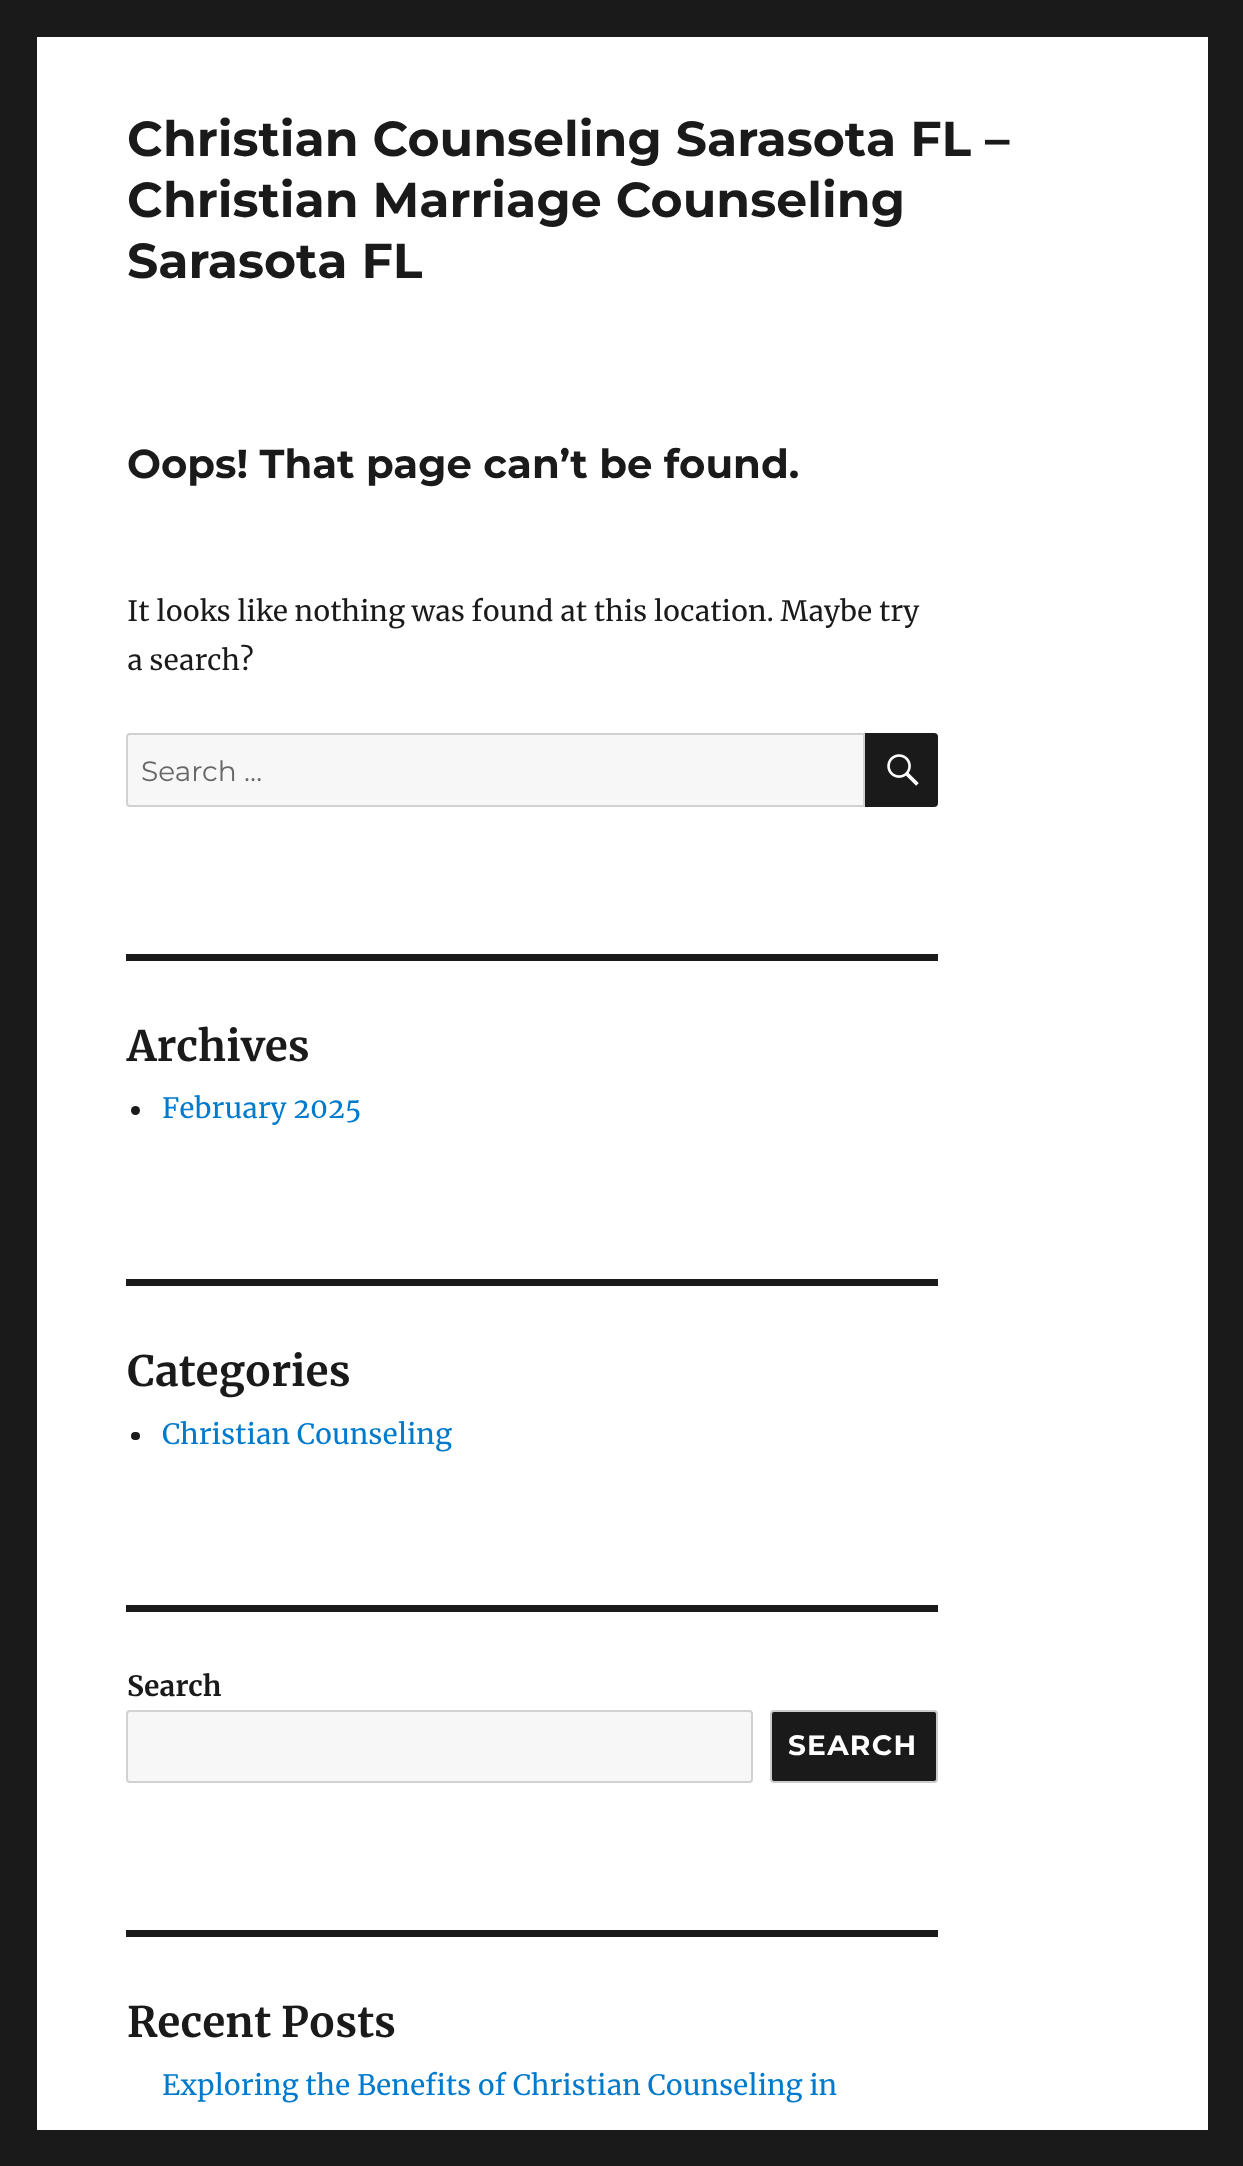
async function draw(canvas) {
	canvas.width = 1243;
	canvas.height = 2166;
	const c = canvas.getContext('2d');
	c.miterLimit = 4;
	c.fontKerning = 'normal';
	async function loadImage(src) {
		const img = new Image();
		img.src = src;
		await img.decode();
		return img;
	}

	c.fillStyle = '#1a1a1a';
	c.fillRect(0, 0, 1243, 2166);
	c.fillStyle = '#fff';
	c.fillRect(37, 37, 1171, 2093);
	c.font = '100 49px Montserrat';
	c.fillStyle = '#1a1a1a';
	for (const [text, x, y] of [
		['Christian Counseling Sarasota FL –', 127, 156],
		['Christian Marriage Counseling', 127, 217],
		['Sarasota FL', 127, 278],
	]) {
		c.fillText(text, x, y);
	}
	c.font = '100 40.25px Montserrat';
	c.fillText('Oops! That page can’t be found.', 127, 478);
	c.font = '28px Merriweather';
	c.fillText('It looks like nothing was found at this location. Maybe try', 127, 621);
	c.fillText('a search?', 127, 670);
	c.fillStyle = '#f7f7f7';
	c.beginPath();
	c.roundRect(127, 734, 737, 72, [3, 0, 0, 3]);
	c.fill();
	c.strokeStyle = '#d1d1d1';
	c.lineWidth = 2;
	c.stroke();
	c.font = '100 28px "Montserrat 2"';
	c.fillStyle = '#686868';
	c.fillText('Search …', 141, 781);
	c.fillStyle = '#1a1a1a';
	c.beginPath();
	c.roundRect(865, 733, 73, 74, [0, 4, 4, 0]);
	c.fill();
	c.drawImage(await loadImage('img1.png'), 887, 754, 32, 32);
	c.fillRect(126, 954, 812, 7);
	c.font = 'bold 42px Merriweather';
	c.fillText('Archives', 127, 1061);
	c.beginPath();
	c.arc(135.5, 1110.5, 4.5, 0, 2 * Math.PI);
	c.fill();
	c.font = '28px Merriweather';
	c.fillStyle = '#007acc';
	c.fillText('February 2025', 162, 1118);
	c.fillStyle = '#1a1a1a';
	c.fillRect(126, 1279, 812, 7);
	c.font = 'bold 42px Merriweather';
	c.fillText('Categories', 127, 1386);
	c.beginPath();
	c.roundRect(131, 1432, 9, 8, 4);
	c.fill();
	c.font = '28px Merriweather';
	c.fillStyle = '#007acc';
	c.fillText('Christian Counseling', 162, 1444);
	c.fillStyle = '#1a1a1a';
	c.fillRect(126, 1605, 812, 7);
	c.font = 'bold 28px Merriweather';
	c.fillText('Search', 127, 1696);
	c.fillStyle = '#f7f7f7';
	c.beginPath();
	c.roundRect(127, 1711, 625, 71, 3);
	c.fill();
	c.stroke();
	c.fillStyle = '#1a1a1a';
	c.beginPath();
	c.roundRect(771, 1711, 166, 71, 3);
	c.fill();
	c.strokeStyle = '#ccc';
	c.stroke();
	c.letterSpacing = '1.25px';
	c.font = '100 28px Montserrat';
	c.fillStyle = '#fff';
	c.fillText('SEARCH', 788, 1755);
	c.fillStyle = '#1a1a1a';
	c.fillRect(126, 1930, 812, 7);
	c.letterSpacing = '0px';
	c.font = 'bold 42px Merriweather';
	c.fillText('Recent Posts', 127, 2037);
	c.font = '28px Merriweather';
	c.fillStyle = '#007acc';
	c.fillText('Exploring the Benefits of Christian Counseling in', 162, 2095);
}

draw(document.querySelector('canvas'));
